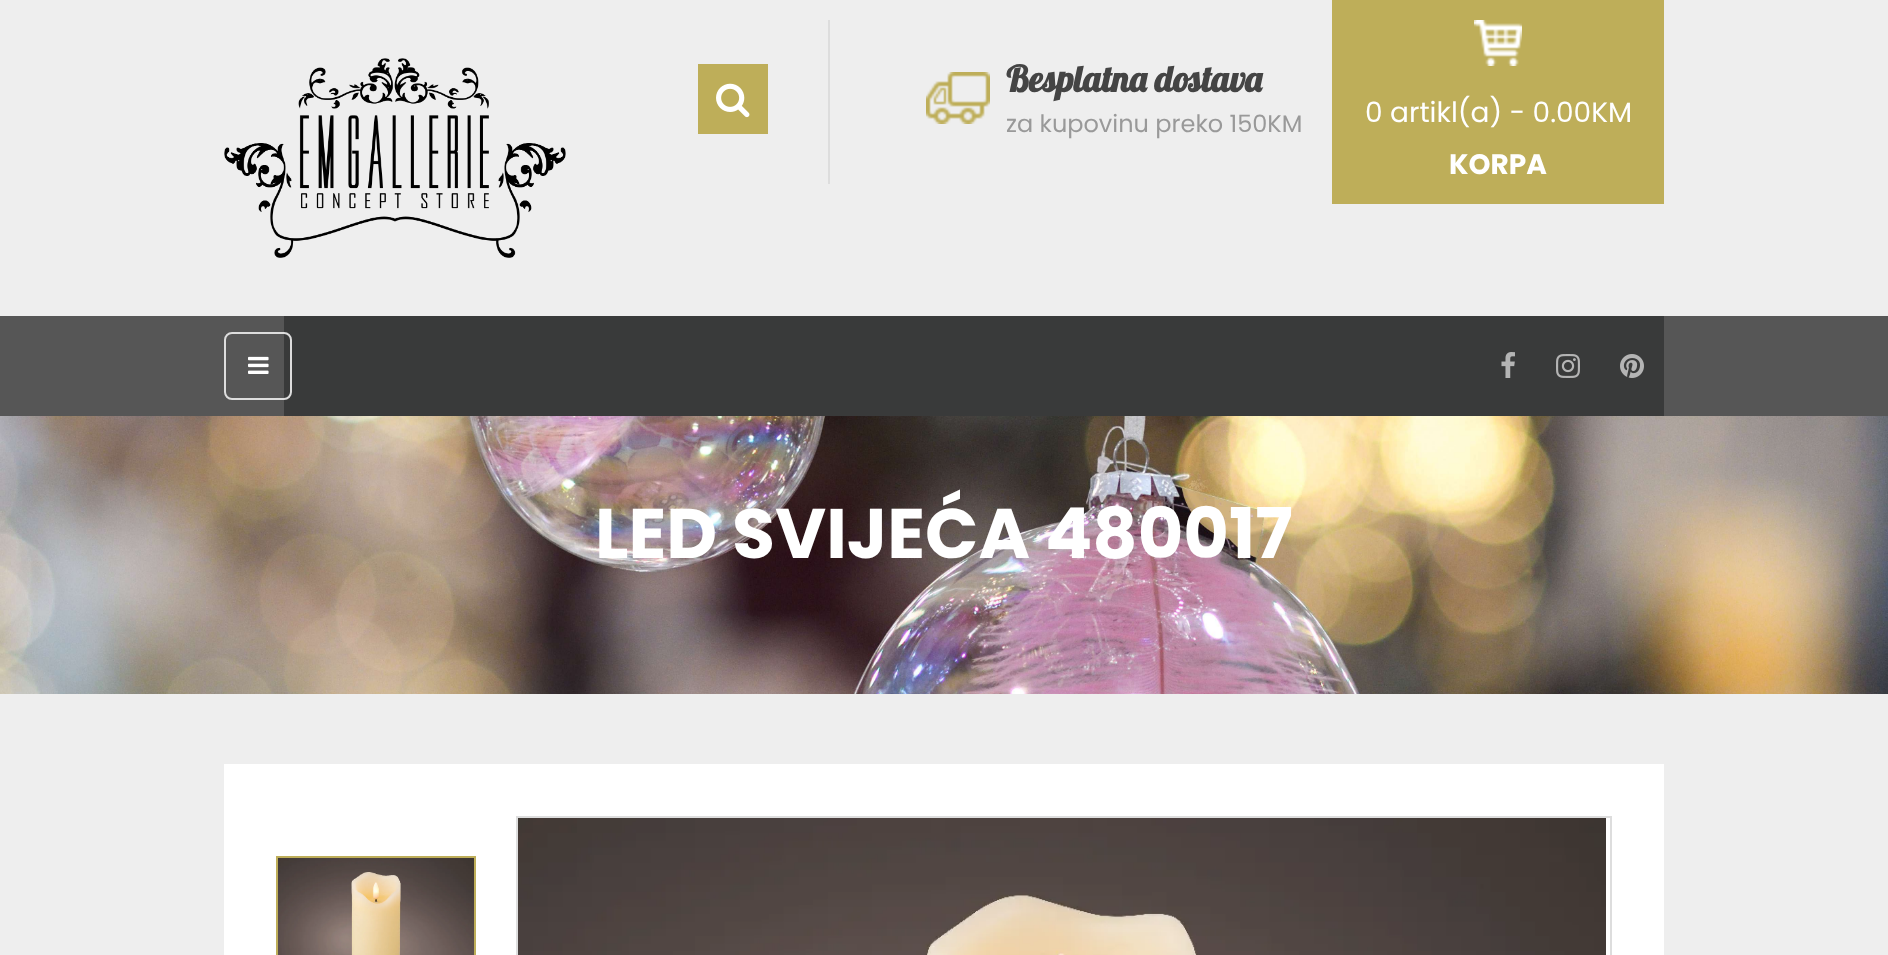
async function draw(canvas) {
	canvas.width = 1888;
	canvas.height = 955;
	const c = canvas.getContext('2d');
	c.miterLimit = 4;
	c.fontKerning = 'none';
	async function loadImage(src) {
		const img = new Image();
		img.src = src;
		await img.decode();
		return img;
	}

	c.fillStyle = '#eee';
	c.fillRect(0, 0, 1888, 955);
	c.drawImage(await loadImage('img1.png'), 224, 58, 342, 200);
	c.fillStyle = '#beae59';
	c.fillRect(698, 64, 70, 70);
	c.drawImage(await loadImage('img2.png'), 716, 83, 34, 35);
	c.fillStyle = '#ddd';
	c.fillRect(828, 20, 2, 164);
	c.drawImage(await loadImage('img3.png'), 926, 72, 64, 52);
	c.font = 'bold 36px Lobster';
	c.fillStyle = '#444';
	c.fillText('Besplatna dostava', 1006, 92);
	c.font = '24px Poppins';
	c.fillStyle = '#999';
	c.fillText('za kupovinu preko 150KM', 1006, 132);
	c.fillStyle = '#beae59';
	c.fillRect(1332, 0, 332, 204);
	c.drawImage(await loadImage('img4.png'), 1474, 20, 48, 46);
	c.font = '28px Poppins';
	c.fillStyle = '#fff';
	c.fillText('0 artikl(a) - 0.00KM', 1365, 122);
	c.font = 'bold 28px Poppins';
	c.fillText('KORPA', 1449, 174);
	c.fillStyle = '#565656';
	c.fillRect(0, 316, 1888, 100);
	c.fillStyle = '#393a3a';
	c.fillRect(284, 316, 1380, 100);
	c.beginPath();
	c.roundRect(225, 333, 66, 66, 7);
	c.strokeStyle = '#ddd';
	c.lineWidth = 2;
	c.stroke();
	c.drawImage(await loadImage('img5.png'), 248, 356, 21, 18);
	c.drawImage(await loadImage('img6.png'), 1501, 352, 14, 26);
	c.drawImage(await loadImage('img7.png'), 1556, 354, 24, 24);
	c.drawImage(await loadImage('img8.png'), 1620, 354, 24, 24);
	c.drawImage(await loadImage('img9.png'), 0, 416, 1888, 278);
	c.font = 'bold 70px Poppins';
	c.fillStyle = '#fff';
	c.fillText('LED SVIJEĆA 480017', 595, 558);
	c.fillRect(224, 764, 1440, 191);
	c.strokeStyle = '#beae59';
	c.strokeRect(277, 857, 198, 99);
	c.drawImage(await loadImage('img10.png'), 278, 858, 196, 97);
	c.strokeStyle = '#ddd';
	c.strokeRect(517, 817, 1094, 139);
	c.drawImage(await loadImage('img11.png'), 518, 818, 1088, 137);
}

draw(document.querySelector('canvas'));
